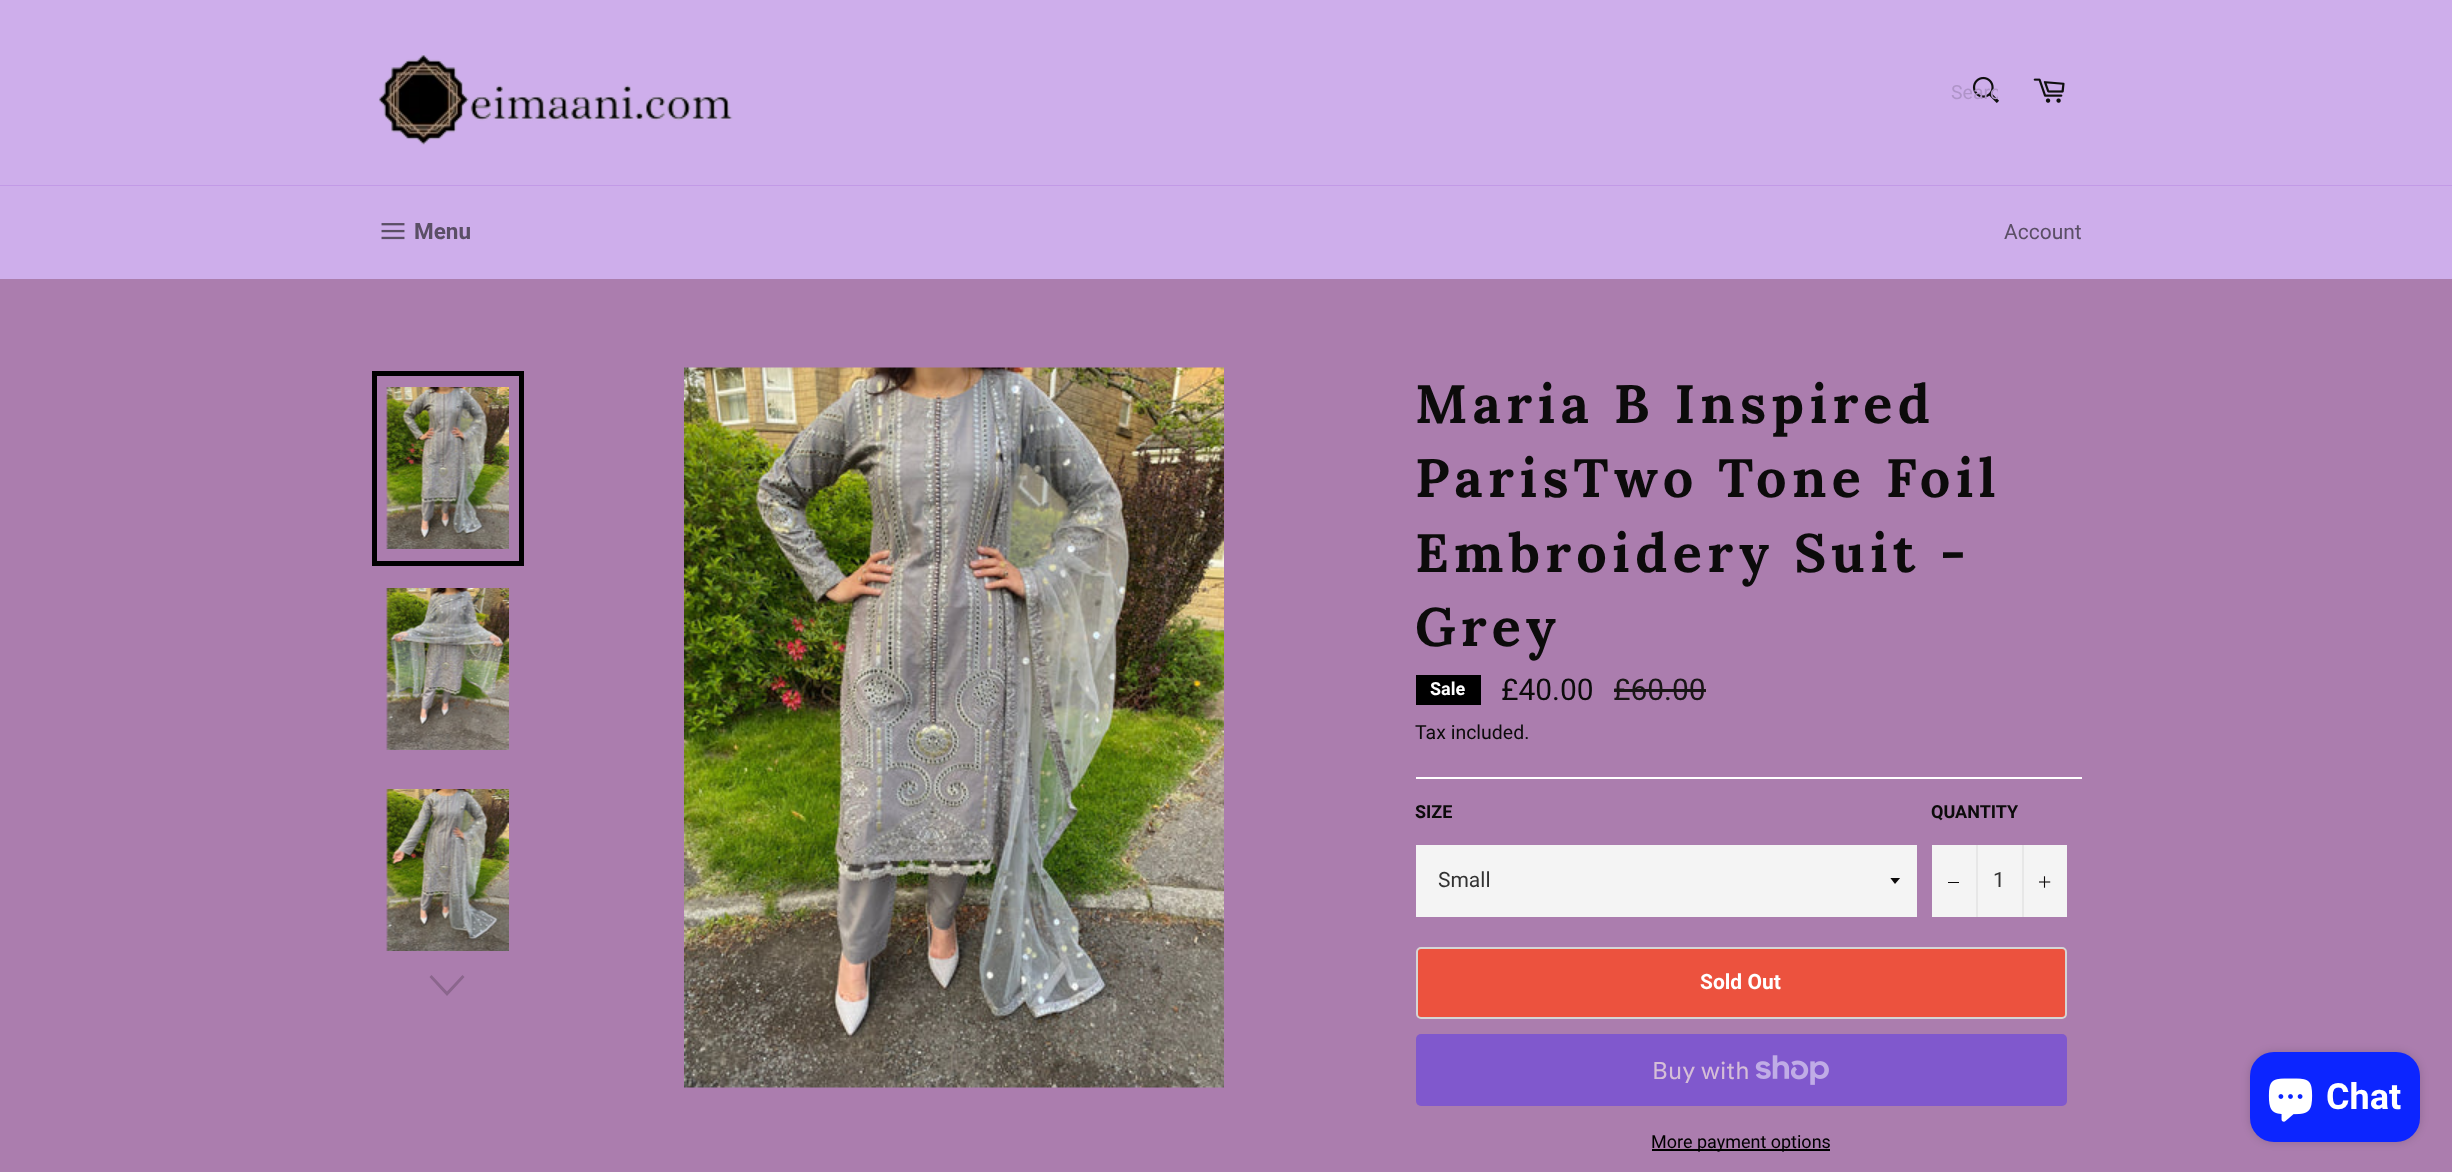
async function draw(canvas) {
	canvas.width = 2452;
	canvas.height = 1172;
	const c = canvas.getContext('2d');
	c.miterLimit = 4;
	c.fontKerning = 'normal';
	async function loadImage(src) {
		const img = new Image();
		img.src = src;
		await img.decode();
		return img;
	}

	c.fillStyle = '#ceaeeb';
	c.fillRect(0, 0, 2452, 1172);
	c.drawImage(await loadImage('img1.png'), 378, 54, 355, 91);
	c.drawImage(await loadImage('img2.png'), 1972, 76, 27, 27);
	c.save();
	c.beginPath();
	c.rect(1950, 81, 48, 23);
	c.clip();
	c.font = '19.5px Roboto';
	c.fillStyle = '#af94c8';
	c.fillText('Searc', 1951, 99);
	c.restore();
	c.drawImage(await loadImage('img3.png'), 2033, 78, 32, 25);
	c.fillStyle = '#c29ae6';
	c.fillRect(0, 185, 2452, 1);
	c.drawImage(await loadImage('img4.png'), 381, 223, 24, 17);
	c.font = 'bold 22.5px Roboto';
	c.fillStyle = '#5b4f66';
	c.fillText('Menu', 414, 239);
	c.font = '21px Roboto';
	c.fillText('Account', 2004, 239);
	c.fillStyle = '#ab7dae';
	c.fillRect(0, 279, 2452, 893);
	c.drawImage(await loadImage('img5.png'), 386, 387, 123, 162);
	c.strokeStyle = '#000';
	c.lineWidth = 5;
	c.strokeRect(374.5, 373.5, 147, 190);
	c.drawImage(await loadImage('img6.png'), 386, 588, 123, 162);
	c.drawImage(await loadImage('img7.png'), 386, 789, 123, 162);
	c.fillStyle = '#8b668d';
	c.beginPath();
	c.moveTo(462.5, 975);
	c.lineTo(464.5, 977);
	c.lineTo(447, 996);
	c.lineTo(429.5, 977);
	c.lineTo(431.5, 975);
	c.lineTo(447, 991.5);
	c.closePath();
	c.fill();
	c.drawImage(await loadImage('img8.png'), 684, 367, 540, 721);
	c.letterSpacing = '5.4px';
	c.font = 'bold 54px Lora';
	c.fillStyle = '#0c0b0b';
	for (const [text, x, y] of [
		['Maria B Inspired', 1415, 423],
		['ParisTwo Tone Foil', 1415, 497],
		['Embroidery Suit -', 1415, 572],
		['Grey', 1415, 646],
	]) {
		c.fillText(text, x, y);
	}
	c.fillStyle = '#000';
	c.fillRect(1416, 675, 65, 30);
	c.letterSpacing = '0px';
	c.font = 'bold 18px Roboto';
	c.fillStyle = '#fff';
	c.fillText('Sale', 1430, 695);
	c.font = '30px Roboto';
	c.fillStyle = '#0c0b0b';
	c.fillText('£40.00', 1501, 700);
	c.fillStyle = '#1a1616';
	c.fillText('£60.00', 1613, 700);
	c.fillRect(1614, 689, 92, 3);
	c.font = '19.5px Roboto';
	c.fillStyle = '#0c0b0b';
	c.fillText('Tax included.', 1415, 739);
	c.fillStyle = '#fff';
	c.fillRect(1416, 777, 666, 2);
	c.font = 'bold 18px Roboto';
	c.fillStyle = '#0c0b0b';
	c.fillText('SIZE', 1415, 818);
	c.fillStyle = '#f4f4f4';
	c.fillRect(1416, 845, 501, 72);
	c.save();
	c.beginPath();
	c.rect(1890, 878, 12, 7);
	c.clip();
	c.fillStyle = '#0c0a0a';
	c.beginPath();
	c.moveTo(1890, 877.5);
	c.lineTo(1895, 884);
	c.lineTo(1900.5, 877.5);
	c.closePath();
	c.fill();
	c.restore();
	c.font = '21px Roboto';
	c.fillStyle = '#333';
	c.fillText('Small', 1438, 887);
	c.font = 'bold 18px Roboto';
	c.fillStyle = '#0c0b0b';
	c.fillText('QUANTITY', 1931, 818);
	for (const [x, y, w, h, color] of [
		[1932, 845, 135, 72, '#f4f4f4'],
		[1976, 845, 2, 72, '#e7e7e7'],
		[1948, 882, 11, 1, '#0c0a0a'],
	]) {
		c.fillStyle = color;
		c.fillRect(x, y, w, h);
	}
	c.font = '21px Roboto';
	c.fillStyle = '#333';
	c.fillText('1', 1993, 887);
	c.fillStyle = '#e7e7e7';
	c.fillRect(2022, 845, 2, 72);
	c.drawImage(await loadImage('img9.png'), 2039, 876, 12, 12);
	c.fillStyle = '#ec523e';
	c.beginPath();
	c.roundRect(1417, 948, 649, 70, 4);
	c.fill();
	c.strokeStyle = '#d5d5d5';
	c.lineWidth = 2;
	c.stroke();
	c.font = 'bold 21px Roboto';
	c.fillStyle = '#fff';
	c.fillText('Sold Out', 1700, 989);
	c.fillStyle = '#8058cd';
	c.beginPath();
	c.roundRect(1416, 1034, 651, 72, 5);
	c.fill();
	c.font = '24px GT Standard';
	c.fillStyle = '#d5bed7';
	c.fillText('Buy with', 1652, 1079);
	c.drawImage(await loadImage('img10.png'), 1755, 1055, 74, 30);
	c.fillStyle = '#000';
	c.fillRect(1652, 1149, 178, 2);
	c.font = '18px Roboto';
	c.fillText('More payment options', 1651, 1148);
	c.fillStyle = '#00000026';
	c.filter = 'blur(4px)';
	c.beginPath();
	c.roundRect(2250, 1052, 170, 90, 24);
	c.fill();
	c.filter = 'none';
	c.fillStyle = '#0c25ff';
	c.beginPath();
	c.roundRect(2250, 1052, 170, 90, 24);
	c.fill();
	c.drawImage(await loadImage('img11.png'), 2268, 1078, 45, 44);
	c.font = 'bold 36px Roboto';
	c.fillStyle = '#fff';
	c.fillText('Chat', 2326, 1109);
}

draw(document.querySelector('canvas'));
